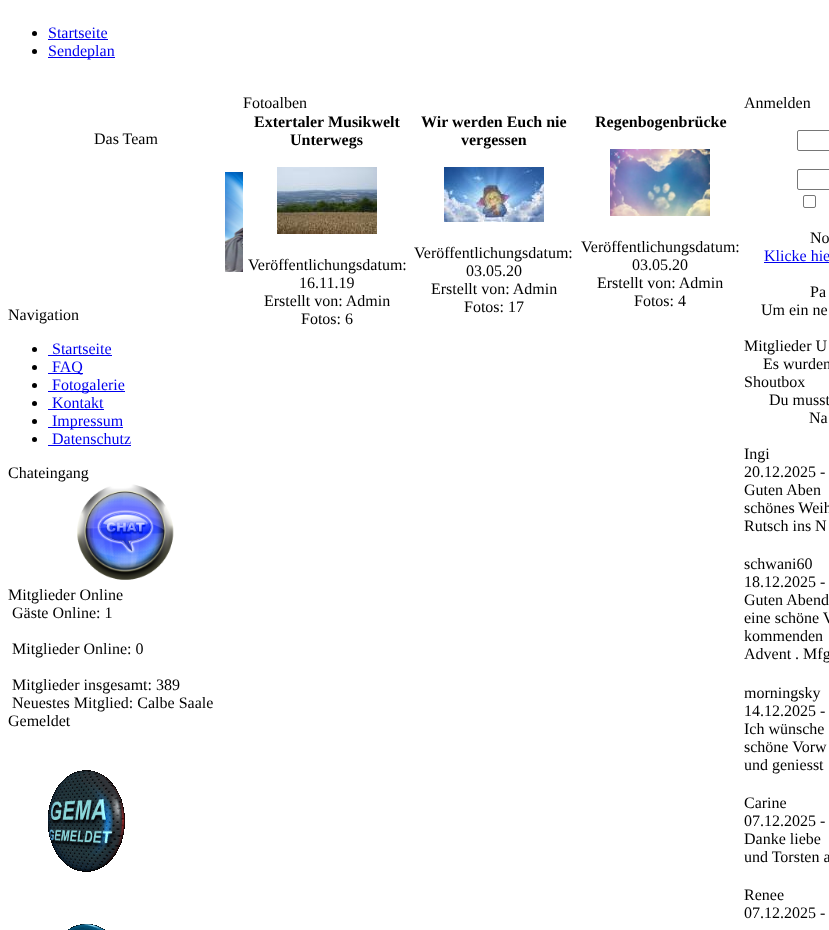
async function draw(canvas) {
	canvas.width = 829;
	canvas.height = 930;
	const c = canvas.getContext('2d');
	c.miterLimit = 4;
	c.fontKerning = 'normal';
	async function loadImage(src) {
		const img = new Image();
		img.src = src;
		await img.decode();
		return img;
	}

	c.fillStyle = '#fff';
	c.fillRect(0, 0, 829, 930);
	c.fillStyle = '#000';
	c.beginPath();
	c.arc(34.5, 33.5, 2.5, 0, 2 * Math.PI);
	c.fill();
	c.font = '16px Liberation Serif';
	c.fillStyle = '#00e';
	c.fillText('Startseite', 48, 38);
	c.fillRect(48, 39, 60, 1);
	c.fillStyle = '#000';
	c.beginPath();
	c.arc(34.5, 51.5, 2.5, 0, 2 * Math.PI);
	c.fill();
	c.fillStyle = '#00e';
	c.fillRect(48, 57, 67, 1);
	c.fillText('Sendeplan', 48, 56);
	c.fillStyle = '#000';
	c.fillText('Das Team', 94, 144);
	c.drawImage(await loadImage('img1.png'), 225, 172, 18, 100);
	c.fillText('Navigation', 8, 320);
	c.beginPath();
	c.arc(34.5, 349.5, 2.5, 0, 2 * Math.PI);
	c.fill();
	c.fillStyle = '#00e';
	c.fillText('Startseite', 52, 354);
	c.fillRect(48, 355, 64, 1);
	c.fillStyle = '#000';
	c.beginPath();
	c.arc(34.5, 367.5, 2.5, 0, 2 * Math.PI);
	c.fill();
	c.fillStyle = '#00e';
	c.fillRect(48, 373, 35, 1);
	c.fillText('FAQ', 52, 372);
	c.fillStyle = '#000';
	c.beginPath();
	c.arc(34.5, 385.5, 2.5, 0, 2 * Math.PI);
	c.fill();
	c.fillStyle = '#00e';
	c.fillRect(48, 391, 77, 1);
	c.fillText('Fotogalerie', 52, 390);
	c.fillStyle = '#000';
	c.beginPath();
	c.arc(34.5, 403.5, 2.5, 0, 2 * Math.PI);
	c.fill();
	c.fillStyle = '#00e';
	c.fillText('Kontakt', 52, 408);
	c.fillRect(48, 409, 56, 1);
	c.fillStyle = '#000';
	c.beginPath();
	c.arc(34.5, 421.5, 2.5, 0, 2 * Math.PI);
	c.fill();
	c.fillStyle = '#00e';
	c.fillRect(48, 427, 75, 1);
	c.fillText('Impressum', 52, 426);
	c.fillStyle = '#000';
	c.beginPath();
	c.arc(34.5, 439.5, 2.5, 0, 2 * Math.PI);
	c.fill();
	c.fillStyle = '#00e';
	c.fillText('Datenschutz', 52, 444);
	c.fillRect(48, 445, 83, 1);
	c.fillStyle = '#000';
	c.fillText('Chateingang', 8, 478);
	c.drawImage(await loadImage('img2.png'), 77, 484, 97, 96);
	for (const [text, x, y] of [
		['Mitglieder Online', 8, 600],
		['Gäste Online: 1', 12, 618],
		['Mitglieder Online: 0', 12, 654],
		['Mitglieder insgesamt: 389', 12, 690],
		['Neuestes Mitglied: Calbe Saale', 12, 708],
		['Gemeldet', 8, 726],
	]) {
		c.fillText(text, x, y);
	}
	c.drawImage(await loadImage('img3.png'), 48, 770, 77, 102);
	c.drawImage(await loadImage('img4.png'), 68, 924, 37, 6);
	c.fillText('Fotoalben', 243, 108);
	c.font = 'bold 16px Liberation Serif';
	c.fillText('Extertaler Musikwelt', 254, 127);
	c.fillText('Unterwegs', 290, 145);
	c.drawImage(await loadImage('img5.png'), 277, 167, 100, 67);
	c.font = '16px Liberation Serif';
	for (const [text, x, y] of [
		['Veröffentlichungsdatum:', 248, 270],
		['16.11.19', 299, 288],
		['Erstellt von: Admin', 264, 306],
		['Fotos: 6', 301, 324],
	]) {
		c.fillText(text, x, y);
	}
	c.font = 'bold 16px Liberation Serif';
	c.fillText('Wir werden Euch nie', 421, 127);
	c.fillText('vergessen', 461, 145);
	c.drawImage(await loadImage('img6.png'), 444, 167, 100, 55);
	c.font = '16px Liberation Serif';
	for (const [text, x, y] of [
		['Veröffentlichungsdatum:', 414, 258],
		['03.05.20', 466, 276],
		['Erstellt von: Admin', 431, 294],
		['Fotos: 17', 464, 312],
	]) {
		c.fillText(text, x, y);
	}
	c.font = 'bold 16px Liberation Serif';
	c.fillText('Regenbogenbrücke', 595, 127);
	c.drawImage(await loadImage('img7.png'), 610, 149, 100, 67);
	c.font = '16px Liberation Serif';
	for (const [text, x, y] of [
		['Veröffentlichungsdatum:', 581, 252],
		['03.05.20', 632, 270],
		['Erstellt von: Admin', 597, 288],
		['Fotos: 4', 634, 306],
		['Anmelden', 744, 108],
	]) {
		c.fillText(text, x, y);
	}
	c.beginPath();
	c.roundRect(797.5, 130.5, 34, 20, 1.5);
	c.strokeStyle = '#767676';
	c.stroke();
	c.beginPath();
	c.roundRect(797.5, 169.5, 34, 20, 1.5);
	c.stroke();
	c.beginPath();
	c.roundRect(803.5, 195.5, 12, 12, 1.5);
	c.stroke();
	c.fillText('No', 810, 243);
	c.fillStyle = '#00e';
	c.fillText('Klicke hie', 764, 261);
	c.fillRect(764, 262, 65, 1);
	c.fillStyle = '#000';
	for (const [text, x, y] of [
		['Pa', 810, 297],
		['Um ein ne', 761, 315],
		['Mitglieder U', 744, 351],
		['Es wurden', 763, 369],
		['Shoutbox', 744, 387],
		['Du musst', 769, 405],
		['Na', 809, 423],
		['Ingi', 744, 459],
		['20.12.2025 -', 744, 477],
		['Guten Aben', 744, 495],
		['schönes Weih', 744, 513],
		['Rutsch ins N', 744, 531],
		['schwani60', 744, 569],
		['18.12.2025 -', 744, 587],
		['Guten Abend', 744, 605],
		['eine schöne V', 744, 623],
		['kommenden', 744, 641],
		['Advent . Mfg', 744, 659],
		['morningsky', 744, 698],
		['14.12.2025 -', 744, 716],
		['Ich wünsche', 744, 734],
		['schöne Vorw', 744, 752],
		['und geniesst', 744, 770],
		['Carine', 744, 808],
		['07.12.2025 -', 744, 826],
		['Danke liebe', 744, 844],
		['und Torsten a', 744, 862],
		['Renee', 744, 900],
		['07.12.2025 -', 744, 918],
	]) {
		c.fillText(text, x, y);
	}
}

draw(document.querySelector('canvas'));
